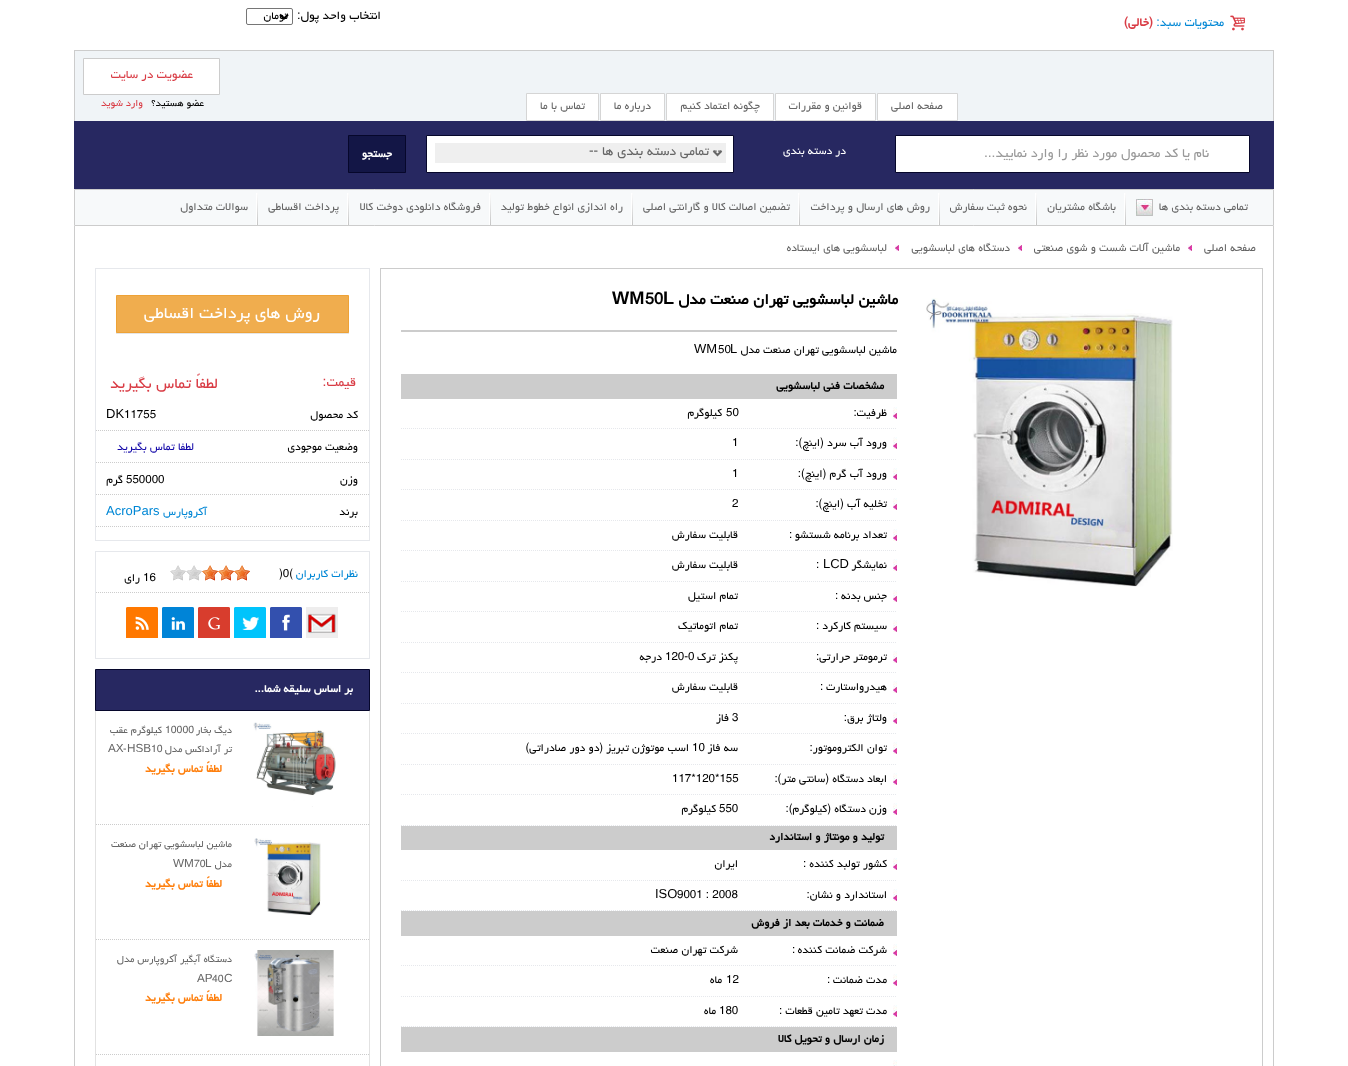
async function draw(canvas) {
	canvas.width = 1348;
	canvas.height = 1066;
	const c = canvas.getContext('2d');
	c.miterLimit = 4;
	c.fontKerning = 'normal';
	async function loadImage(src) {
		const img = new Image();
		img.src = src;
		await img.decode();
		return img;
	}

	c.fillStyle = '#fff';
	c.fillRect(0, 0, 1348, 1066);
	c.drawImage(await loadImage('img1.png'), 1230, 15, 15, 16);
	c.direction = 'rtl';
	c.font = '14.25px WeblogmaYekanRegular';
	c.fillStyle = '#0087d5';
	c.fillText('محتویات سبد:', 1224, 26);
	c.font = 'bold 14.25px WeblogmaYekanRegular';
	c.fillStyle = '#d93c45';
	c.fillText('(خالی)', 1153, 26);
	c.font = '14.25px WeblogmaYekanRegular';
	c.fillStyle = '#000';
	c.fillText('انتخاب واحد پول:', 381, 19);
	c.beginPath();
	c.roundRect(246.5, 8.5, 46, 16, 1.5);
	c.strokeStyle = '#767676';
	c.stroke();
	c.beginPath();
	c.moveTo(280, 14.5);
	c.lineTo(284, 18.5);
	c.lineTo(288, 14.5);
	c.strokeStyle = '#000';
	c.lineWidth = 2;
	c.stroke();
	c.font = '13px WeblogmaYekanRegular';
	c.fillText('تومان', 288, 19);
	for (const [x, y, w, h, color] of [
		[75, 51, 1198, 70, '#f0f4f7'],
		[74, 50, 1200, 1, '#ccc'],
		[1273, 50, 1, 71, '#ccc'],
		[74, 50, 1, 71, '#ccc'],
	]) {
		c.fillStyle = color;
		c.fillRect(x, y, w, h);
	}
	c.fillStyle = '#fff';
	c.beginPath();
	c.rect(877.5, 93.5, 80, 27);
	c.fill();
	c.strokeStyle = '#d5d5d5';
	c.lineWidth = 1;
	c.stroke();
	c.fillStyle = '#666';
	c.fillText('صفحه اصلی', 943, 109);
	c.fillStyle = '#fff';
	c.beginPath();
	c.rect(775.5, 93.5, 100, 27);
	c.fill();
	c.stroke();
	c.fillStyle = '#666';
	c.fillText('قوانین و مقررات', 862, 109);
	c.fillStyle = '#fff';
	c.beginPath();
	c.rect(666.5, 93.5, 107, 27);
	c.fill();
	c.stroke();
	c.fillStyle = '#666';
	c.fillText('چگونه اعتماد کنیم', 760, 109);
	c.fillStyle = '#fff';
	c.beginPath();
	c.rect(600.5, 93.5, 64, 27);
	c.fill();
	c.stroke();
	c.fillStyle = '#666';
	c.fillText('درباره ما', 651, 109);
	c.fillStyle = '#fff';
	c.beginPath();
	c.rect(526.5, 93.5, 72, 27);
	c.fill();
	c.stroke();
	c.fillStyle = '#666';
	c.fillText('تماس با ما', 585, 109);
	c.fillStyle = '#fff';
	c.beginPath();
	c.rect(83.5, 58.5, 136, 36);
	c.fill();
	c.strokeStyle = '#ccc';
	c.stroke();
	c.font = '14.25px WeblogmaYekanRegular';
	c.fillStyle = '#d93c45';
	c.fillText('عضویت در سایت', 193, 78);
	c.font = '11.75px WeblogmaYekanRegular';
	c.fillStyle = '#000';
	c.fillText('عضو هستید؟', 204, 106);
	c.fillStyle = '#d93c45';
	c.fillText('وارد شوید', 143, 106);
	c.fillStyle = '#272861';
	c.fillRect(74, 121, 1200, 68);
	c.fillStyle = '#fff';
	c.beginPath();
	c.rect(895.5, 135.5, 354, 37);
	c.fill();
	c.strokeStyle = '#06072b';
	c.stroke();
	c.font = '15.6px WeblogmaYekanRegular';
	c.fillStyle = '#999';
	c.fillText('نام یا کد محصول مورد نظر را وارد نمایید...', 1209, 157);
	c.font = '13px WeblogmaYekanRegular';
	c.fillStyle = '#fff';
	c.fillText('در دسته بندی', 846, 154);
	c.beginPath();
	c.rect(426.5, 135.5, 307, 37);
	c.fill();
	c.stroke();
	c.fillStyle = '#efefef';
	c.fillRect(435, 143, 291, 20);
	c.beginPath();
	c.moveTo(713.5, 151);
	c.lineTo(717.5, 155);
	c.lineTo(721.5, 151);
	c.strokeStyle = '#666';
	c.lineWidth = 2;
	c.stroke();
	c.font = '15.6px WeblogmaYekanRegular';
	c.fillStyle = '#666';
	c.fillText('-- تمامی دسته بندی ها --', 722, 155);
	c.fillStyle = '#131646';
	c.beginPath();
	c.rect(348.5, 135.5, 57, 37);
	c.fill();
	c.strokeStyle = '#06072b';
	c.lineWidth = 1;
	c.stroke();
	c.font = 'bold 13px WeblogmaYekanRegular';
	c.fillStyle = '#fff';
	c.fillText('جستجو', 392, 157);
	c.fillStyle = '#f7f9fa';
	c.beginPath();
	c.rect(74.5, 189.5, 1199, 36);
	c.fill();
	c.strokeStyle = '#ccc';
	c.stroke();
	c.drawImage(await loadImage('img2.png'), 1136, 199, 17, 17);
	c.font = '13px WeblogmaYekanRegular';
	c.fillStyle = '#666';
	c.fillText('تمامی دسته بندی ها', 1248, 210);
	c.drawImage(await loadImage('img3.png'), 1124, 193, 2, 32);
	c.fillText('باشگاه مشتریان', 1116, 210);
	c.drawImage(await loadImage('img3.png'), 1035, 193, 2, 32);
	c.fillText('نحوه ثبت سفارش', 1027, 210);
	c.drawImage(await loadImage('img3.png'), 938, 193, 2, 32);
	c.fillText('روش های ارسال و پرداخت', 930, 210);
	c.drawImage(await loadImage('img3.png'), 798, 193, 2, 32);
	c.fillText('تضمین اصالت کالا و گارانتی اصلی', 790, 210);
	c.drawImage(await loadImage('img3.png'), 631, 193, 2, 32);
	c.fillText('راه اندازی انواع خطوط تولید', 623, 210);
	c.drawImage(await loadImage('img3.png'), 489, 193, 2, 32);
	c.fillText('فروشگاه دانلودی دوخت کالا', 481, 210);
	c.drawImage(await loadImage('img3.png'), 347, 193, 2, 32);
	c.fillText('پرداخت اقساطی', 339, 210);
	c.drawImage(await loadImage('img3.png'), 256, 193, 2, 32);
	c.fillText('سوالات متداول', 248, 210);
	c.fillStyle = '#ccc';
	c.fillRect(1273, 226, 1, 840);
	c.fillRect(74, 226, 1, 840);
	c.fillStyle = '#666';
	c.fillText('صفحه اصلی', 1256, 251);
	c.drawImage(await loadImage('img4.png'), 1188, 245, 4, 6);
	c.fillText('ماشین آلات شست و شوی صنعتی', 1180, 251);
	c.drawImage(await loadImage('img4.png'), 1018, 245, 4, 6);
	c.fillText('دستگاه های لباسشویی', 1010, 251);
	c.drawImage(await loadImage('img4.png'), 895, 245, 4, 6);
	c.fillText('لباسشویی های ایستاده', 887, 251);
	c.strokeRect(380.5, 268.5, 882, 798);
	c.drawImage(await loadImage('img5.png'), 926, 298, 247, 289);
	c.fillStyle = '#ccc';
	c.fillRect(401, 330, 496, 2);
	c.font = 'bold 18.25px WeblogmaYekanRegular';
	c.fillStyle = '#000';
	c.fillText('ماشین لباسشویی تهران صنعت مدل', 898, 304);
	c.direction = 'ltr';
	c.font = 'bold 18.25px Liberation Sans';
	c.fillText('L', 663, 304);
	c.font = 'bold 18.25px WeblogmaYekanRegular';
	c.fillText('50', 645, 304);
	c.font = 'bold 18.25px Liberation Sans';
	c.fillText('WM', 612, 304);
	c.direction = 'rtl';
	c.font = '13px WeblogmaYekanRegular';
	c.fillText('ماشین لباسشویی تهران صنعت مدل', 897, 353);
	c.direction = 'ltr';
	c.font = '13px Liberation Sans';
	c.fillText('L', 730, 353);
	c.font = '13px WeblogmaYekanRegular';
	c.fillText('50', 718, 353);
	c.font = '13px Liberation Sans';
	c.fillText('WM', 694, 353);
	c.fillStyle = '#ccc';
	c.fillRect(401, 374, 496, 25);
	c.direction = 'rtl';
	c.font = 'bold 13px WeblogmaYekanRegular';
	c.fillStyle = '#000';
	c.fillText('مشخصات فنی لباسشویی', 884, 389);
	c.drawImage(await loadImage('img6.png'), 893, 407, 4, 12);
	c.beginPath();
	c.moveTo(401, 428.5);
	c.lineTo(897, 428.5);
	c.strokeStyle = '#e6e8ec';
	c.setLineDash([1, 1]);
	c.stroke();
	c.font = '13px WeblogmaYekanRegular';
	c.fillText('ظرفیت:', 887, 416);
	c.direction = 'ltr';
	c.fillText('50', 726, 416);
	c.direction = 'rtl';
	c.fillText('کیلوگرم', 722, 416);
	c.drawImage(await loadImage('img6.png'), 893, 437, 4, 12);
	c.beginPath();
	c.moveTo(401, 459.5);
	c.lineTo(897, 459.5);
	c.stroke();
	c.fillText('ورود آب سرد (اینچ):', 887, 446);
	c.direction = 'ltr';
	c.fillText('1', 732, 446);
	c.drawImage(await loadImage('img6.png'), 893, 468, 4, 12);
	c.beginPath();
	c.moveTo(401, 489.5);
	c.lineTo(897, 489.5);
	c.stroke();
	c.direction = 'rtl';
	c.fillText('ورود آب گرم (اینچ):', 887, 477);
	c.direction = 'ltr';
	c.fillText('1', 732, 477);
	c.drawImage(await loadImage('img6.png'), 893, 498, 4, 12);
	c.beginPath();
	c.moveTo(401, 520.5);
	c.lineTo(897, 520.5);
	c.stroke();
	c.direction = 'rtl';
	c.fillText('تخلیه آب (اینچ):', 887, 507);
	c.direction = 'ltr';
	c.fillText('2', 732, 507);
	c.drawImage(await loadImage('img6.png'), 893, 529, 4, 12);
	c.beginPath();
	c.moveTo(401, 550.5);
	c.lineTo(897, 550.5);
	c.stroke();
	c.direction = 'rtl';
	c.fillText('تعداد برنامه شستشو', 887, 538);
	c.direction = 'ltr';
	c.fillText(':', 789, 538);
	c.direction = 'rtl';
	c.fillText('قابلیت سفارش', 738, 538);
	c.drawImage(await loadImage('img6.png'), 893, 559, 4, 12);
	c.beginPath();
	c.moveTo(401, 581.5);
	c.lineTo(897, 581.5);
	c.stroke();
	c.fillText('نمایشگر', 887, 568);
	c.direction = 'ltr';
	c.font = '13px Liberation Sans';
	c.fillText('LCD', 823, 568);
	c.font = '13px WeblogmaYekanRegular';
	c.fillText(':', 816, 568);
	c.direction = 'rtl';
	c.fillText('قابلیت سفارش', 738, 568);
	c.drawImage(await loadImage('img6.png'), 893, 590, 4, 12);
	c.beginPath();
	c.moveTo(401, 611.5);
	c.lineTo(897, 611.5);
	c.stroke();
	c.fillText('جنس بدنه', 887, 599);
	c.direction = 'ltr';
	c.fillText(':', 835, 599);
	c.direction = 'rtl';
	c.fillText('تمام استیل', 738, 599);
	c.drawImage(await loadImage('img6.png'), 893, 620, 4, 12);
	c.beginPath();
	c.moveTo(401, 642.5);
	c.lineTo(897, 642.5);
	c.stroke();
	c.fillText('سیستم کارکرد', 887, 629);
	c.direction = 'ltr';
	c.fillText(':', 816, 629);
	c.direction = 'rtl';
	c.fillText('تمام اتوماتیک', 738, 629);
	c.drawImage(await loadImage('img6.png'), 893, 651, 4, 12);
	c.beginPath();
	c.moveTo(401, 672.5);
	c.lineTo(897, 672.5);
	c.stroke();
	c.fillText('ترمومتر حرارتی:', 887, 660);
	c.fillText('پکنز ترک', 738, 660);
	c.direction = 'ltr';
	c.fillText('120-0', 665, 660);
	c.direction = 'rtl';
	c.fillText('درجه', 662, 660);
	c.drawImage(await loadImage('img6.png'), 893, 681, 4, 12);
	c.beginPath();
	c.moveTo(401, 703.5);
	c.lineTo(897, 703.5);
	c.stroke();
	c.fillText('هیدرواستارت', 887, 690);
	c.direction = 'ltr';
	c.fillText(':', 820, 690);
	c.direction = 'rtl';
	c.fillText('قابلیت سفارش', 738, 690);
	c.drawImage(await loadImage('img6.png'), 893, 712, 4, 12);
	c.beginPath();
	c.moveTo(401, 733.5);
	c.lineTo(897, 733.5);
	c.stroke();
	c.fillText('ولتاژ برق:', 887, 721);
	c.direction = 'ltr';
	c.fillText('3', 732, 721);
	c.direction = 'rtl';
	c.fillText('فاز', 729, 721);
	c.drawImage(await loadImage('img6.png'), 893, 742, 4, 12);
	c.beginPath();
	c.moveTo(401, 764.5);
	c.lineTo(897, 764.5);
	c.stroke();
	c.fillText('توان الکتروموتور:', 887, 751);
	c.fillText('سه فاز', 738, 751);
	c.direction = 'ltr';
	c.fillText('10', 692, 751);
	c.direction = 'rtl';
	c.fillText('اسب موتوژن تبریز (دو دور صادراتی)', 689, 751);
	c.drawImage(await loadImage('img6.png'), 893, 773, 4, 12);
	c.beginPath();
	c.moveTo(401, 794.5);
	c.lineTo(897, 794.5);
	c.stroke();
	c.fillText('ابعاد دستگاه (سانتی متر):', 887, 782);
	c.direction = 'ltr';
	c.fillText('117*120*155', 672, 782);
	c.drawImage(await loadImage('img6.png'), 893, 803, 4, 12);
	c.beginPath();
	c.moveTo(401, 825.5);
	c.lineTo(897, 825.5);
	c.stroke();
	c.direction = 'rtl';
	c.fillText('وزن دستگاه (کیلوگرم):', 887, 812);
	c.direction = 'ltr';
	c.fillText('550', 719, 812);
	c.direction = 'rtl';
	c.fillText('کیلوگرم', 716, 812);
	c.fillStyle = '#ccc';
	c.fillRect(401, 826, 496, 24);
	c.font = 'bold 13px WeblogmaYekanRegular';
	c.fillStyle = '#000';
	c.fillText('تولید و مونتاژ و استاندارد', 884, 840);
	c.drawImage(await loadImage('img6.png'), 893, 858, 4, 12);
	c.beginPath();
	c.moveTo(401, 880.5);
	c.lineTo(897, 880.5);
	c.stroke();
	c.font = '13px WeblogmaYekanRegular';
	c.fillText('کشور تولبد کننده', 887, 867);
	c.direction = 'ltr';
	c.fillText(':', 803, 867);
	c.direction = 'rtl';
	c.fillText('ایران', 738, 867);
	c.drawImage(await loadImage('img6.png'), 893, 889, 4, 12);
	c.beginPath();
	c.moveTo(401, 910.5);
	c.lineTo(897, 910.5);
	c.stroke();
	c.fillText('استاندارد و نشان:', 887, 898);
	c.direction = 'ltr';
	c.fillText('9001 : 2008', 677, 898);
	c.font = '13px Liberation Sans';
	c.fillText('ISO', 655, 898);
	c.fillStyle = '#ccc';
	c.fillRect(401, 911, 496, 25);
	c.direction = 'rtl';
	c.font = 'bold 13px WeblogmaYekanRegular';
	c.fillStyle = '#000';
	c.fillText('ضمانت و خدمات بعد از فروش', 884, 926);
	c.drawImage(await loadImage('img6.png'), 893, 944, 4, 12);
	c.beginPath();
	c.moveTo(401, 965.5);
	c.lineTo(897, 965.5);
	c.stroke();
	c.font = '13px WeblogmaYekanRegular';
	c.fillText('شرکت ضمانت کننده', 887, 953);
	c.direction = 'ltr';
	c.fillText(':', 792, 953);
	c.direction = 'rtl';
	c.fillText('شرکت تهران صنعت', 738, 953);
	c.drawImage(await loadImage('img6.png'), 893, 974, 4, 12);
	c.beginPath();
	c.moveTo(401, 996.5);
	c.lineTo(897, 996.5);
	c.stroke();
	c.fillText('مدت ضمانت', 887, 983);
	c.direction = 'ltr';
	c.fillText(':', 827, 983);
	c.fillText('12', 726, 983);
	c.direction = 'rtl';
	c.fillText('ماه', 722, 983);
	c.drawImage(await loadImage('img6.png'), 893, 1005, 4, 12);
	c.beginPath();
	c.moveTo(401, 1026.5);
	c.lineTo(897, 1026.5);
	c.stroke();
	c.fillText('مدت تعهد تامین قطعات', 887, 1014);
	c.direction = 'ltr';
	c.fillText(':', 779, 1014);
	c.fillText('180', 719, 1014);
	c.direction = 'rtl';
	c.fillText('ماه', 716, 1014);
	c.fillStyle = '#ccc';
	c.fillRect(401, 1027, 496, 25);
	c.font = 'bold 13px WeblogmaYekanRegular';
	c.fillStyle = '#000';
	c.fillText('زمان ارسال و تحویل کالا', 884, 1042);
	c.drawImage(await loadImage('img7.png'), 893, 1060, 4, 6);
	c.setLineDash([]);
	c.strokeRect(95.5, 268.5, 274, 272);
	c.fillStyle = '#0000001a';
	c.filter = 'blur(0.5px)';
	c.beginPath();
	c.rect(116, 296, 233, 38);
	c.fill();
	c.filter = 'none';
	c.fillStyle = '#f0ad4e';
	c.beginPath();
	c.rect(116.5, 295.5, 232, 37);
	c.fill();
	c.strokeStyle = '#eea236';
	c.stroke();
	c.font = '19.5px WeblogmaYekanRegular';
	c.fillStyle = '#fff';
	c.fillText('روش های پرداخت اقساطی', 320, 318);
	c.font = '15.6px WeblogmaYekanRegular';
	c.fillStyle = '#d93c45';
	c.fillText('قیمت:', 356, 386);
	c.font = '18.25px WeblogmaYekanRegular';
	c.fillText('لطفاً تماس بگیرید', 218, 388);
	c.beginPath();
	c.moveTo(96, 430.5);
	c.lineTo(369, 430.5);
	c.strokeStyle = '#ccc';
	c.setLineDash([1, 1]);
	c.stroke();
	c.font = '13px WeblogmaYekanRegular';
	c.fillStyle = '#000';
	c.fillText('کد محصول', 358, 418);
	c.direction = 'ltr';
	c.fillText('11755', 124, 418);
	c.font = '13px Liberation Sans';
	c.fillText('DK', 106, 418);
	c.beginPath();
	c.moveTo(96, 462.5);
	c.lineTo(369, 462.5);
	c.stroke();
	c.direction = 'rtl';
	c.font = '13px WeblogmaYekanRegular';
	c.fillText('وضعیت موجودی', 358, 450);
	c.fillStyle = '#1207a8';
	c.fillText('لطفا تماس بگیرید', 194, 450);
	c.beginPath();
	c.moveTo(96, 494.5);
	c.lineTo(369, 494.5);
	c.stroke();
	c.fillStyle = '#000';
	c.fillText('وزن', 358, 483);
	c.direction = 'ltr';
	c.fillText('550000', 126, 483);
	c.direction = 'rtl';
	c.fillText('گرم', 123, 483);
	c.beginPath();
	c.moveTo(96, 526.5);
	c.lineTo(369, 526.5);
	c.stroke();
	c.fillText('برند', 358, 515);
	c.fillStyle = '#0087d5';
	c.fillText('آکروپارس', 207, 515);
	c.direction = 'ltr';
	c.font = '13px Liberation Sans';
	c.fillText('AcroPars', 106, 515);
	c.strokeStyle = '#e6e8ec';
	c.setLineDash([]);
	c.strokeRect(95.5, 551.5, 274, 107);
	c.direction = 'rtl';
	c.font = '13px WeblogmaYekanRegular';
	c.fillText('نظرات کاربران', 358, 577);
	c.direction = 'ltr';
	c.fillStyle = '#000';
	c.fillText(')0(', 279, 577);
	c.drawImage(await loadImage('img8.png'), 170, 565, 32, 16);
	c.drawImage(await loadImage('img9.png'), 202, 565, 48, 16);
	c.fillText('16', 143, 581);
	c.direction = 'rtl';
	c.fillText('رای', 140, 581);
	c.beginPath();
	c.moveTo(96, 592.5);
	c.lineTo(369, 592.5);
	c.strokeStyle = '#ccc';
	c.setLineDash([1, 1]);
	c.stroke();
	c.drawImage(await loadImage('img10.png'), 306, 607, 32, 31);
	c.drawImage(await loadImage('img11.png'), 270, 607, 32, 31);
	c.drawImage(await loadImage('img12.png'), 234, 607, 32, 31);
	c.drawImage(await loadImage('img13.png'), 198, 607, 32, 31);
	c.drawImage(await loadImage('img14.png'), 162, 607, 32, 31);
	c.drawImage(await loadImage('img15.png'), 126, 607, 32, 31);
	c.fillStyle = '#272861';
	c.beginPath();
	c.rect(95.5, 669.5, 274, 41);
	c.fill();
	c.strokeStyle = '#06072b';
	c.setLineDash([]);
	c.stroke();
	c.font = 'bold 13px WeblogmaYekanRegular';
	c.fillStyle = '#fff';
	c.fillText('بر اساس سلیقه شما...', 353, 692);
	c.fillStyle = '#e2e2e2';
	c.fillRect(369, 711, 1, 355);
	c.fillRect(95, 711, 1, 355);
	c.beginPath();
	c.moveTo(96, 824.5);
	c.lineTo(369, 824.5);
	c.strokeStyle = '#ccc';
	c.setLineDash([1, 1]);
	c.stroke();
	c.drawImage(await loadImage('img16.png'), 253, 722, 83, 85);
	c.font = '11.75px WeblogmaYekanRegular';
	c.fillStyle = '#666';
	c.fillText('دیگ بخار', 232, 733);
	c.direction = 'ltr';
	c.fillText('10000', 165, 733);
	c.direction = 'rtl';
	c.fillText('کیلوگرم عقب', 162, 733);
	c.fillText('تر آراداکس مدل', 232, 752);
	c.direction = 'ltr';
	c.fillText('10', 151, 752);
	c.font = '11.75px Liberation Sans';
	c.fillText('AX HSB', 108, 752);
	c.font = '11.75px WeblogmaYekanRegular';
	c.fillText('-', 123, 752);
	c.direction = 'rtl';
	c.font = 'bold 13px WeblogmaYekanRegular';
	c.fillStyle = '#fe7f0d';
	c.fillText('لطفاً تماس بگیرید', 222, 772);
	c.beginPath();
	c.moveTo(96, 939.5);
	c.lineTo(369, 939.5);
	c.stroke();
	c.drawImage(await loadImage('img17.png'), 254, 838, 67, 77);
	c.font = '11.75px WeblogmaYekanRegular';
	c.fillStyle = '#666';
	c.fillText('ماشین لباسشویی تهران صنعت', 232, 847);
	c.fillText('مدل', 232, 867);
	c.direction = 'ltr';
	c.font = '11.75px Liberation Sans';
	c.fillText('L', 205, 867);
	c.font = '11.75px WeblogmaYekanRegular';
	c.fillText('70', 194, 867);
	c.font = '11.75px Liberation Sans';
	c.fillText('WM', 173, 867);
	c.direction = 'rtl';
	c.font = 'bold 13px WeblogmaYekanRegular';
	c.fillStyle = '#fe7f0d';
	c.fillText('لطفاً تماس بگیرید', 222, 887);
	c.beginPath();
	c.moveTo(96, 1054.5);
	c.lineTo(369, 1054.5);
	c.stroke();
	c.drawImage(await loadImage('img18.png'), 254, 950, 80, 86);
	c.font = '11.75px WeblogmaYekanRegular';
	c.fillStyle = '#666';
	c.fillText('دستگاه آبگیر آکروپارس مدل', 232, 962);
	c.direction = 'ltr';
	c.font = '11.75px Liberation Sans';
	c.fillText('C', 224, 982);
	c.font = '11.75px WeblogmaYekanRegular';
	c.fillText('40', 212, 982);
	c.font = '11.75px Liberation Sans';
	c.fillText('AP', 197, 982);
	c.direction = 'rtl';
	c.font = 'bold 13px WeblogmaYekanRegular';
	c.fillStyle = '#fe7f0d';
	c.fillText('لطفاً تماس بگیرید', 222, 1001);
}

draw(document.querySelector('canvas'));
